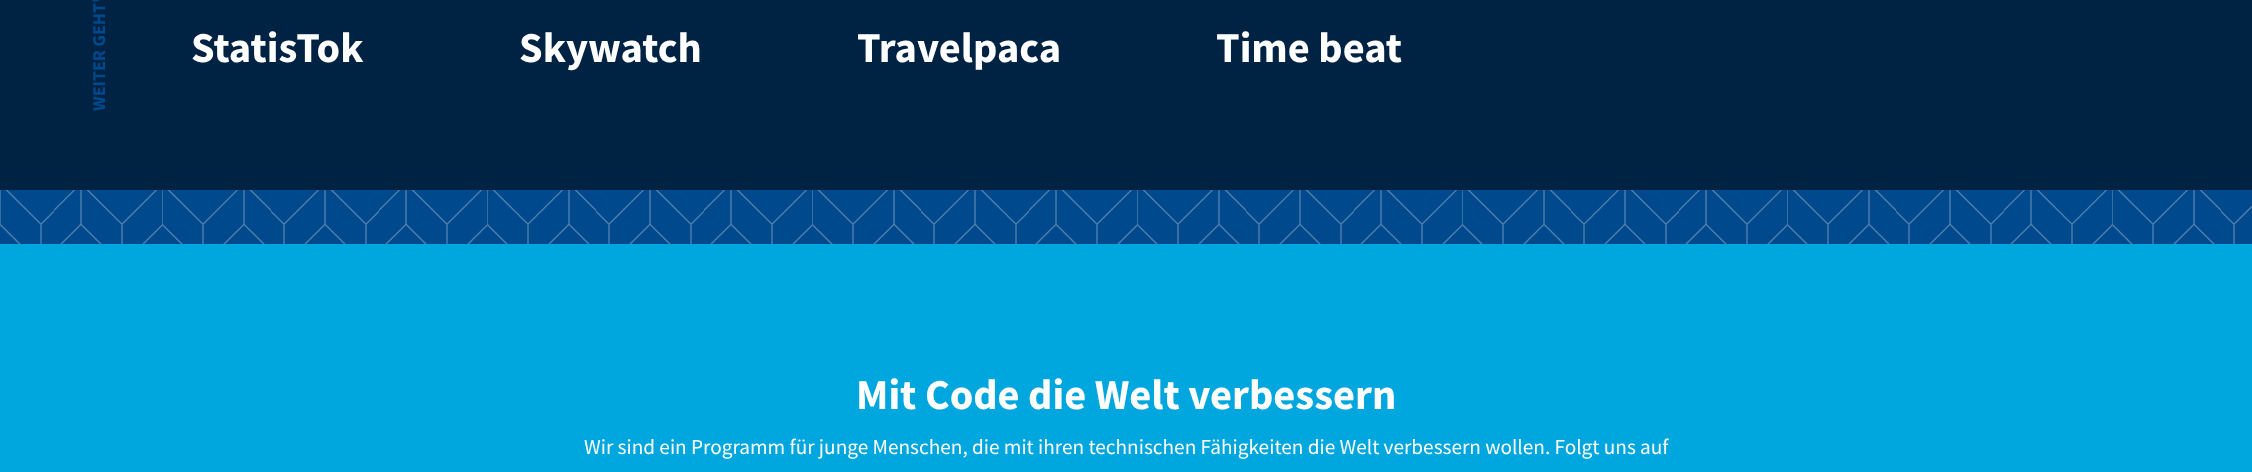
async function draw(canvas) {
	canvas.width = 2252;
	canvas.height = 472;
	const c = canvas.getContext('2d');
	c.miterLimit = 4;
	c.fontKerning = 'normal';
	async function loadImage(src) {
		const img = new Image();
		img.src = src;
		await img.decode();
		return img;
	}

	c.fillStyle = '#00498c';
	c.fillRect(0, 0, 2252, 472);
	c.drawImage(await loadImage('img1.png'), 0, 190, 2252, 54);
	c.fillStyle = '#002343';
	c.fillRect(0, 0, 2252, 190);
	c.font = 'bold 18px Source Sans Pro';
	c.fillStyle = '#00498c';
	c.save();
	c.translate(105, 111);
	c.rotate(-90 * Math.PI / 180);
	c.fillText('WEITER GEHT\'S', 0, 0);
	c.restore();
	c.font = 'bold 42.5px Source Sans Pro';
	c.fillStyle = '#fff';
	for (const [text, x, y] of [
		['StatisTok', 191, 62],
		['Skywatch', 519, 62],
		['Travelpaca', 857, 62],
		['Time beat', 1216, 62],
	]) {
		c.fillText(text, x, y);
	}
	c.fillStyle = '#00a6de';
	c.fillRect(0, 244, 2252, 228);
	c.fillStyle = '#fff';
	c.fillText('Mit Code die Welt verbessern', 856, 409);
	c.font = '21.25px Source Sans Pro';
	c.fillText('Wir sind ein Programm für junge Menschen, die mit ihren technischen Fähigkeiten die Welt verbessern wollen. Folgt uns auf', 584, 454);
}

draw(document.querySelector('canvas'));
